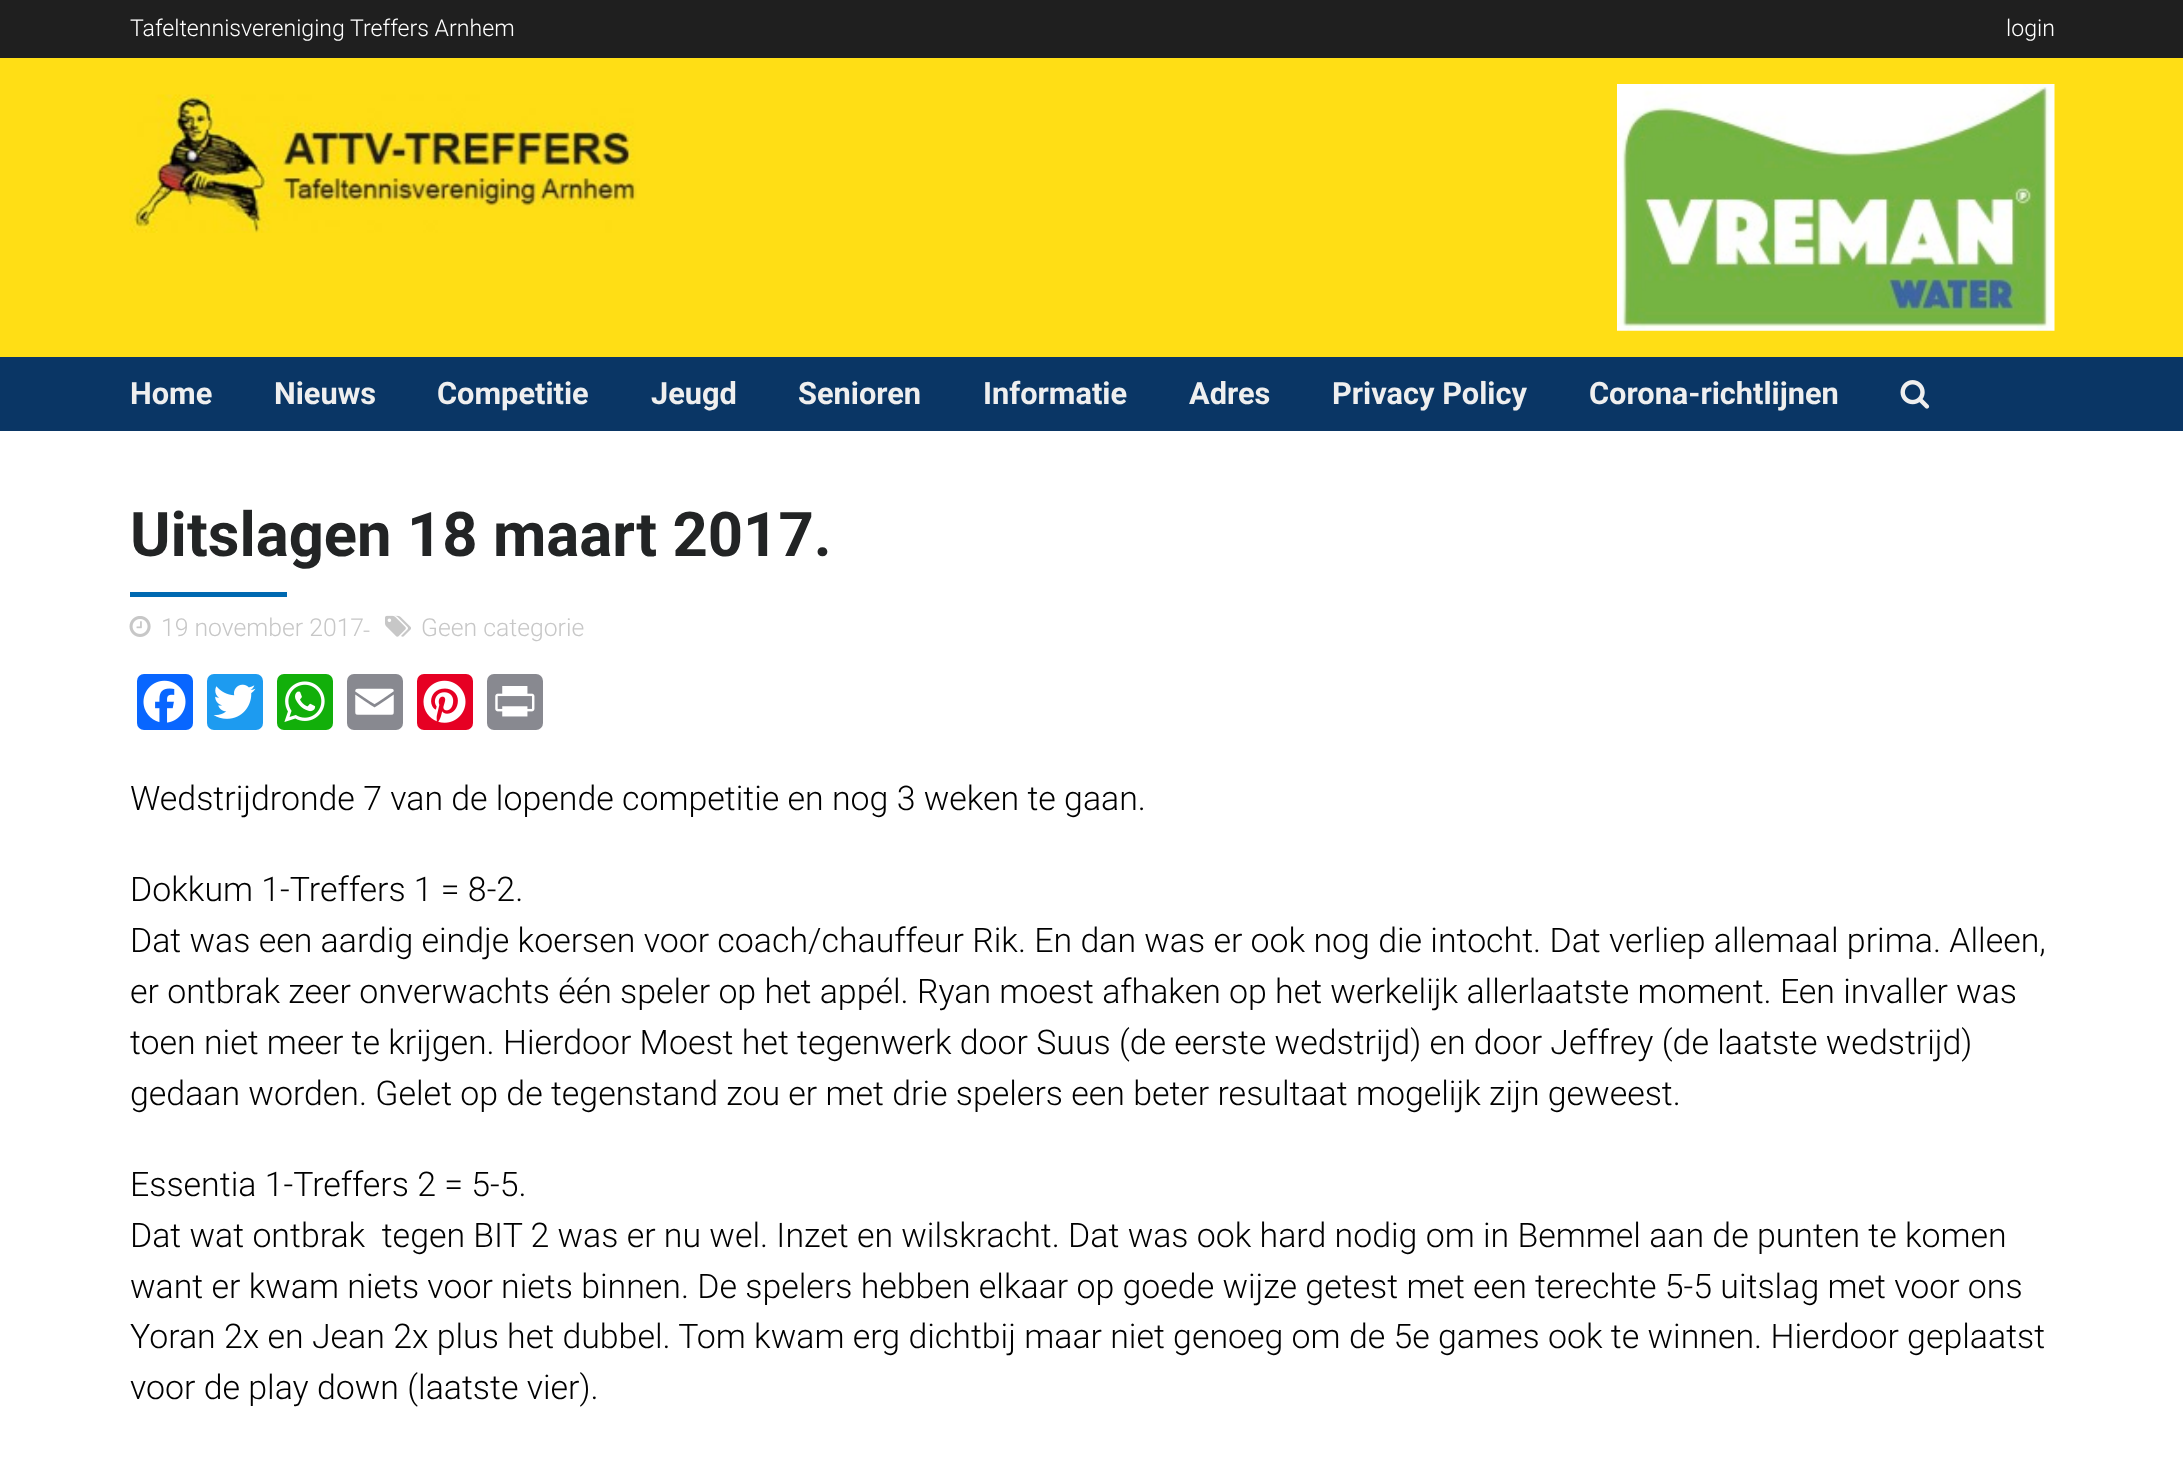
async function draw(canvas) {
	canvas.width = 2183;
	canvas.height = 1477;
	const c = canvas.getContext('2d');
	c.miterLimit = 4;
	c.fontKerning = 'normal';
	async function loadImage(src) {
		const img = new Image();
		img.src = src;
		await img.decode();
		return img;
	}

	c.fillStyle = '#fff';
	c.fillRect(0, 0, 2183, 1477);
	c.fillStyle = '#1f1f1f';
	c.fillRect(0, 0, 2183, 58);
	c.font = '300 23.1px Roboto';
	c.fillStyle = '#fff';
	c.fillText('Tafeltennisvereniging Treffers Arnhem', 130, 36);
	c.fillText('login', 2006, 36);
	c.fillStyle = '#ffde15';
	c.fillRect(0, 58, 2183, 299);
	c.drawImage(await loadImage('img1.png'), 129, 94, 511, 139);
	c.drawImage(await loadImage('img2.png'), 1617, 84, 438, 247);
	c.fillStyle = '#0a3665';
	c.fillRect(0, 357, 2183, 74);
	c.font = 'bold 30.75px Roboto';
	c.fillStyle = '#efefef';
	for (const [text, x, y] of [
		['Home', 130, 404],
		['Nieuws', 274, 404],
		['Competitie', 437, 404],
		['Jeugd', 651, 404],
		['Senioren', 798, 404],
		['Informatie', 983, 404],
		['Adres', 1189, 404],
		['Privacy Policy', 1332, 404],
		['Corona-richtlijnen', 1589, 404],
	]) {
		c.fillText(text, x, y);
	}
	c.drawImage(await loadImage('img3.png'), 1900, 380, 30, 29);
	c.font = 'bold 61.6px Roboto';
	c.fillStyle = '#222425';
	c.fillText('Uitslagen 18 maart 2017.', 130, 556);
	c.fillStyle = '#0069b1';
	c.fillRect(130, 592, 157, 5);
	c.drawImage(await loadImage('img4.png'), 129, 616, 22, 21);
	c.font = '300 24.75px Roboto';
	c.fillStyle = '#c7c7c7';
	c.fillText('19 november 2017', 161, 636);
	c.fillText('-', 363, 639);
	c.drawImage(await loadImage('img5.png'), 385, 615, 26, 22);
	c.fillText('Geen categorie', 421, 636);
	c.fillStyle = '#0866ff';
	c.beginPath();
	c.roundRect(137, 674, 56, 56, 7);
	c.fill();
	c.drawImage(await loadImage('img6.png'), 143, 680, 43, 43);
	c.fillStyle = '#1d9bf0';
	c.beginPath();
	c.roundRect(207, 674, 56, 56, 7);
	c.fill();
	c.drawImage(await loadImage('img7.png'), 213, 684, 43, 35);
	c.fillStyle = '#12af0a';
	c.beginPath();
	c.roundRect(277, 674, 56, 56, 7);
	c.fill();
	c.drawImage(await loadImage('img8.png'), 284, 681, 41, 41);
	c.fillStyle = '#888990';
	c.beginPath();
	c.roundRect(347, 674, 56, 56, 7);
	c.fill();
	c.drawImage(await loadImage('img9.png'), 355, 688, 39, 27);
	c.fillStyle = '#e60023';
	c.beginPath();
	c.roundRect(417, 674, 56, 56, 7);
	c.fill();
	c.drawImage(await loadImage('img10.png'), 423, 680, 43, 43);
	c.fillStyle = '#888990';
	c.beginPath();
	c.roundRect(487, 674, 56, 56, 7);
	c.fill();
	c.drawImage(await loadImage('img11.png'), 495, 686, 40, 31);
	c.font = '300 33.88px Roboto';
	c.fillStyle = '#000';
	for (const [text, x, y] of [
		['Wedstrijdronde 7 van de lopende competitie en nog 3 weken te gaan.', 130, 810],
		['Dokkum 1-Treffers 1 = 8-2.', 130, 901],
		['Dat was een aardig eindje koersen voor coach/chauffeur Rik. En dan was er ook nog die intocht. Dat verliep allemaal prima. Alleen,', 130, 952],
		['er ontbrak zeer onverwachts één speler op het appél. Ryan moest afhaken op het werkelijk allerlaatste moment. Een invaller was', 130, 1003],
		['toen niet meer te krijgen. Hierdoor Moest het tegenwerk door Suus (de eerste wedstrijd) en door Jeffrey (de laatste wedstrijd)', 130, 1054],
		['gedaan worden. Gelet op de tegenstand zou er met drie spelers een beter resultaat mogelijk zijn geweest.', 130, 1105],
		['Essentia 1-Treffers 2 = 5-5.', 130, 1196],
		['Dat wat ontbrak  tegen BIT 2 was er nu wel. Inzet en wilskracht. Dat was ook hard nodig om in Bemmel aan de punten te komen', 130, 1247],
		['want er kwam niets voor niets binnen. De spelers hebben elkaar op goede wijze getest met een terechte 5-5 uitslag met voor ons', 130, 1298],
		['Yoran 2x en Jean 2x plus het dubbel. Tom kwam erg dichtbij maar niet genoeg om de 5e games ook te winnen. Hierdoor geplaatst', 130, 1348],
		['voor de play down (laatste vier).', 130, 1399],
	]) {
		c.fillText(text, x, y);
	}
}

draw(document.querySelector('canvas'));
